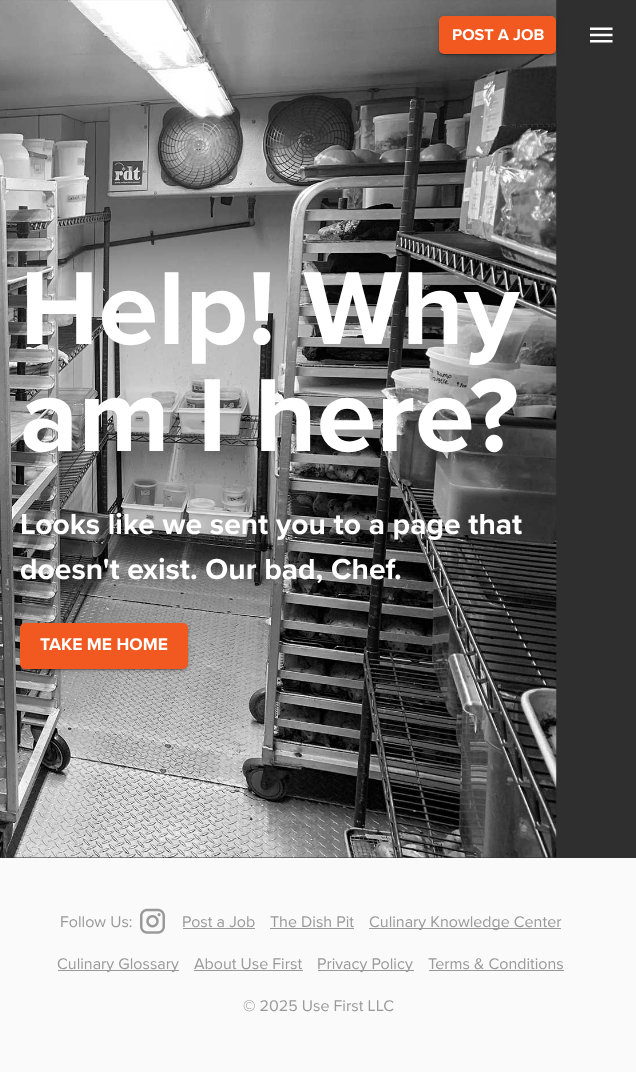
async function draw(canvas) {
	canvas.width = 636;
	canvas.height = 1072;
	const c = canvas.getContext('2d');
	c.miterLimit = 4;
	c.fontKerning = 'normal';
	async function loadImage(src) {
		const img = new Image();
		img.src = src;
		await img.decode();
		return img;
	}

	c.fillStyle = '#fafafa';
	c.fillRect(0, 0, 636, 1072);
	c.fillStyle = '#2f2f2f';
	c.fillRect(0, 0, 636, 858);
	c.drawImage(await loadImage('img1.png'), 0, 0, 557, 858);
	c.fillStyle = '#0000001f';
	c.filter = 'blur(3px)';
	c.beginPath();
	c.roundRect(439, 18, 117, 37, 5);
	c.fill();
	c.filter = 'none';
	c.fillStyle = '#00000024';
	c.filter = 'blur(1px)';
	c.beginPath();
	c.roundRect(439, 19, 117, 37, 5);
	c.fill();
	c.filter = 'none';
	c.fillStyle = '#00000033';
	c.filter = 'blur(0.5px)';
	c.beginPath();
	c.roundRect(441, 23, 113, 32, 2.5);
	c.fill();
	c.filter = 'none';
	c.fillStyle = '#f15920';
	c.beginPath();
	c.roundRect(439, 16, 117, 38, 5);
	c.fill();
	c.font = 'bold 16.25px Proxima Nova';
	c.fillStyle = '#fff';
	c.fillText('POST A JOB', 452, 40);
	c.drawImage(await loadImage('img2.png'), 590, 27, 23, 16);
	c.font = 'bold 107.5px Proxima Nova';
	c.fillText('Help! Why', 20, 344);
	c.fillText('am I here?', 20, 451);
	c.font = 'bold 30px Proxima Nova';
	c.fillText('Looks like we sent you to a page that', 20, 534);
	c.fillText('doesn\'t exist. Our bad, Chef.', 20, 579);
	c.fillStyle = '#0000001f';
	c.filter = 'blur(3px)';
	c.beginPath();
	c.roundRect(20, 624, 168, 46, 5);
	c.fill();
	c.filter = 'none';
	c.fillStyle = '#00000024';
	c.filter = 'blur(1px)';
	c.beginPath();
	c.roundRect(20, 625, 168, 46, 5);
	c.fill();
	c.filter = 'none';
	c.fillStyle = '#00000033';
	c.filter = 'blur(0.5px)';
	c.beginPath();
	c.roundRect(23, 629, 162, 41, 2.5);
	c.fill();
	c.filter = 'none';
	c.fillStyle = '#f15920';
	c.beginPath();
	c.roundRect(20, 623, 168, 46, 5);
	c.fill();
	c.font = 'bold 17.5px Proxima Nova';
	c.fillStyle = '#fff';
	c.fillText('TAKE ME HOME', 40, 650);
	c.font = '16px Proxima Nova';
	c.fillStyle = '#999';
	c.fillText('Follow Us:', 60, 927);
	c.drawImage(await loadImage('img3.png'), 140, 908, 25, 26);
	c.fillText('Post a Job', 182, 927);
	c.fillRect(183, 928, 72, 1);
	c.fillText('The Dish Pit', 270, 927);
	c.fillRect(270, 928, 84, 1);
	c.fillRect(369, 928, 192, 1);
	c.fillText('Culinary Knowledge Center', 369, 927);
	c.fillRect(58, 970, 121, 1);
	c.fillText('Culinary Glossary', 57, 969);
	c.fillText('About Use First', 194, 969);
	c.fillRect(194, 970, 109, 1);
	c.fillRect(318, 970, 96, 1);
	c.fillText('Privacy Policy', 317, 969);
	c.fillText('Terms & Conditions', 428, 969);
	c.fillRect(429, 970, 135, 1);
	c.fillText('© 2025 Use First LLC', 243, 1011);
}

draw(document.querySelector('canvas'));
